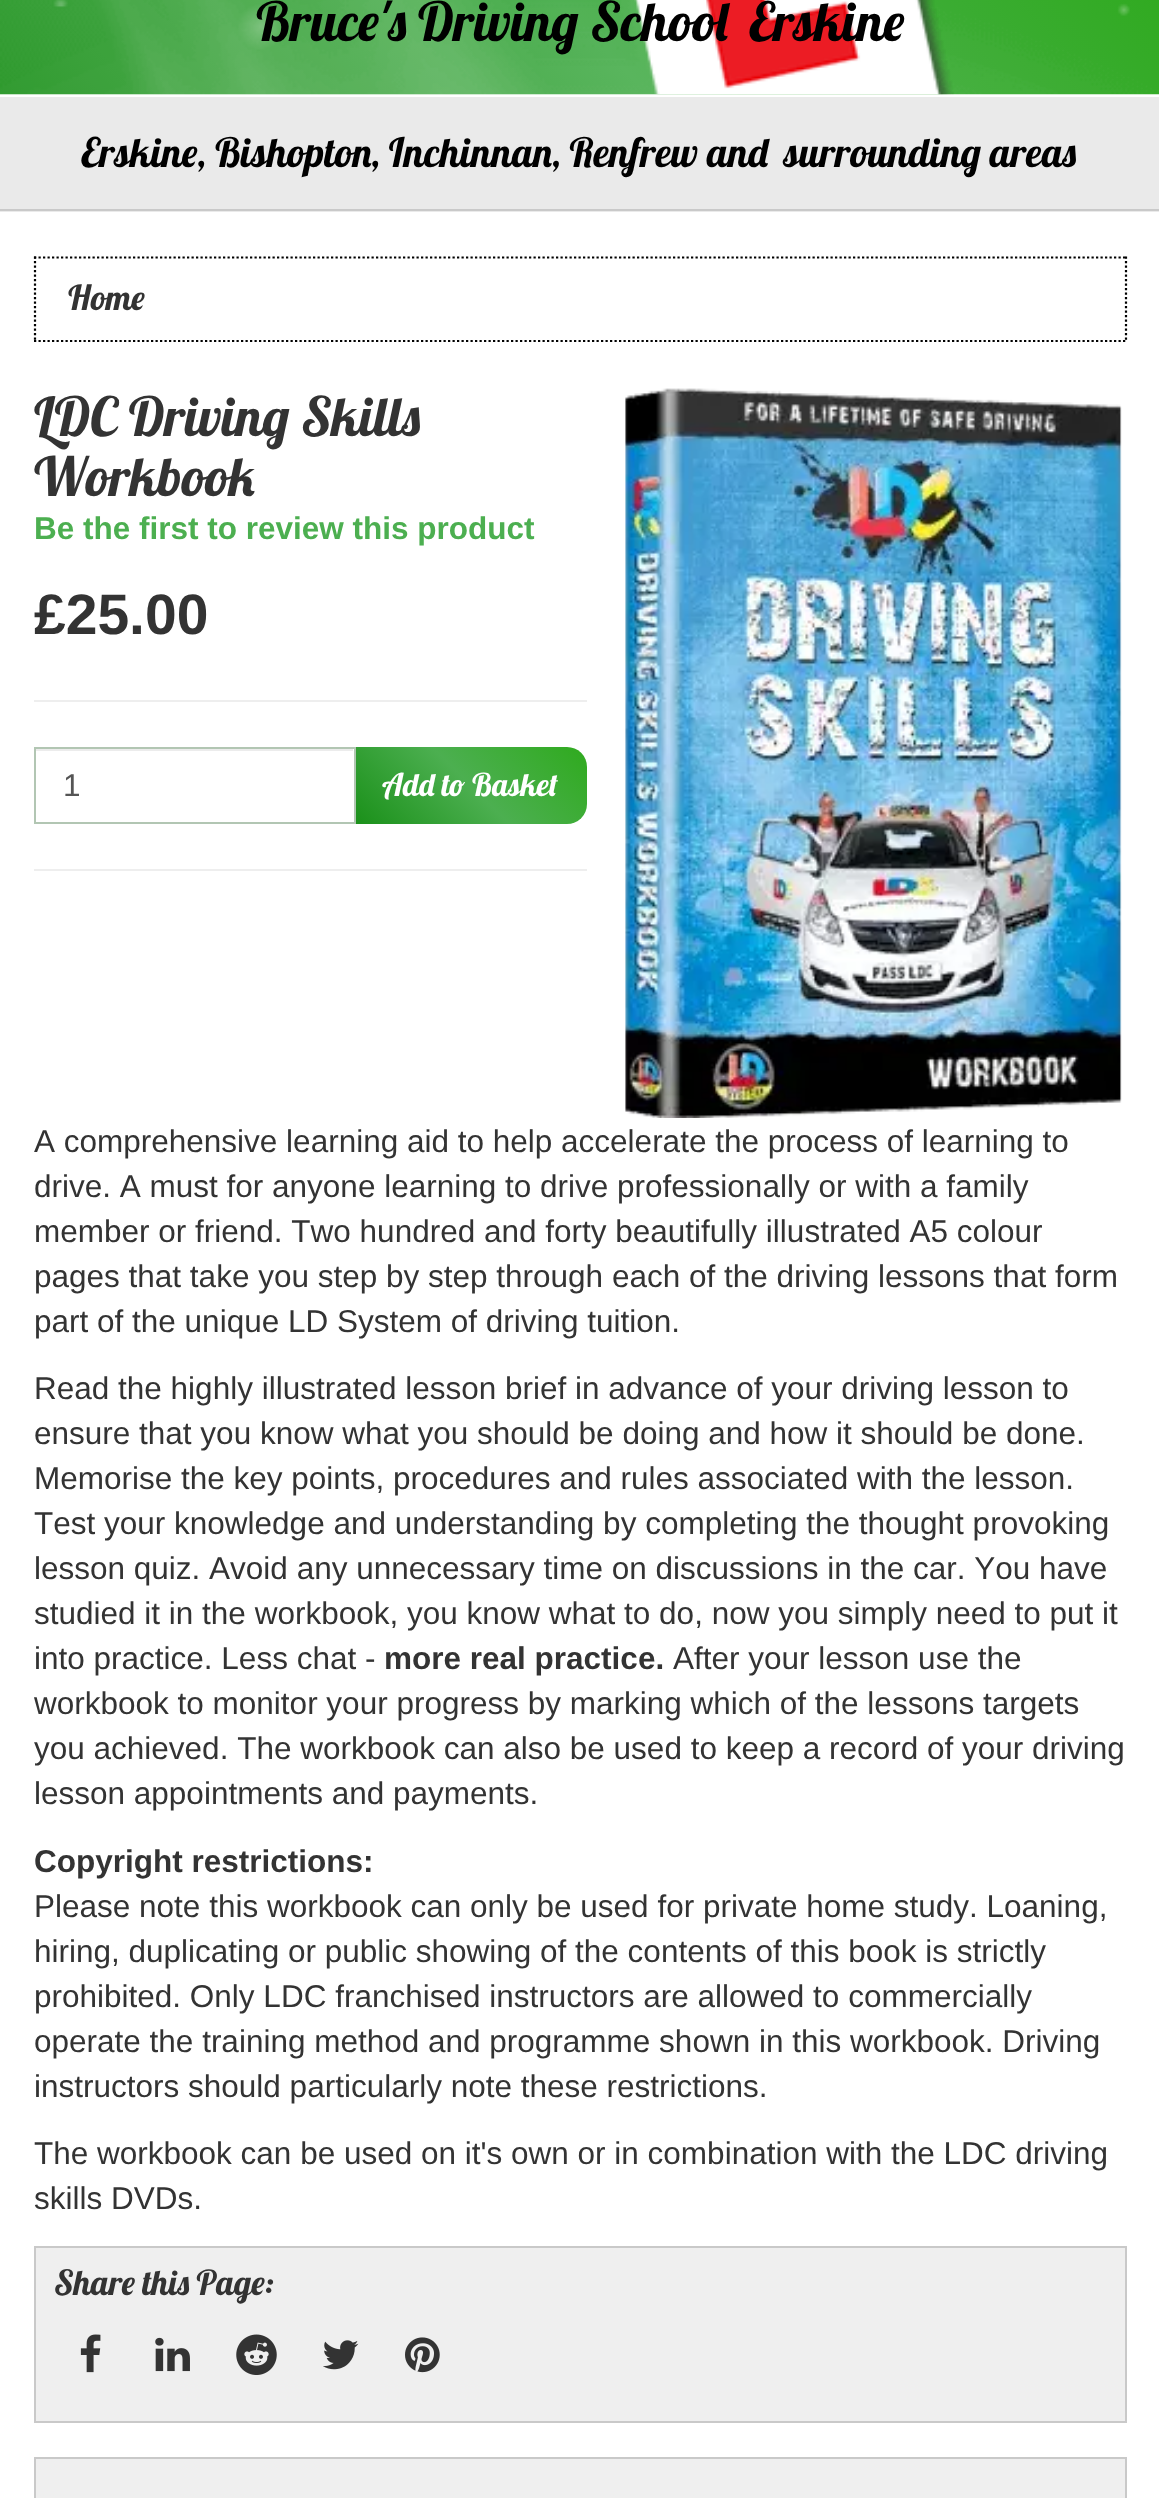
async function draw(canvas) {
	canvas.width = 1159;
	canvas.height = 2498;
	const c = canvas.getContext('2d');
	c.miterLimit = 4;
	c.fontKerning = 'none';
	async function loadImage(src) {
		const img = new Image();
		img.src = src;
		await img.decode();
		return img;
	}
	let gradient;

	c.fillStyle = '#fff';
	c.fillRect(0, 0, 1159, 2498);
	c.drawImage(await loadImage('img1.png'), 0, 0, 1159, 95);
	c.drawImage(await loadImage('img2.png'), 634, 0, 320, 95);
	c.font = '54px Lobster';
	c.fillStyle = '#000';
	c.fillText('Bruce\'s Driving School', 256, 41);
	c.fillText('Erskine', 749, 41);
	c.fillStyle = '#eaeaea';
	c.fillRect(0, 97, 1159, 115);
	c.fillStyle = '#c9c9c9';
	c.fillRect(0, 209, 1159, 2);
	c.font = '40.5px Lobster';
	c.fillStyle = '#000';
	c.fillText('Erskine, Bishopton, Inchinnan, Renfrew and', 81, 167);
	c.fillText('surrounding areas', 784, 167);
	c.beginPath();
	c.moveTo(34, 257.5);
	c.lineTo(1127, 257.5);
	c.strokeStyle = '#000';
	c.lineWidth = 2.2;
	c.setLineDash([2.25, 2.25]);
	c.stroke();
	c.beginPath();
	c.moveTo(1126, 256.5);
	c.lineTo(1126, 342);
	c.stroke();
	c.beginPath();
	c.moveTo(34, 341);
	c.lineTo(1127, 341);
	c.stroke();
	c.beginPath();
	c.moveTo(35, 256.5);
	c.lineTo(35, 342);
	c.stroke();
	c.font = '34.5px Lobster';
	c.fillStyle = '#333';
	c.fillText('Home', 68, 310);
	c.font = '54px Lobster';
	c.fillText('LDC Driving Skills', 34, 436);
	c.fillText('Workbook', 34, 496);
	c.font = 'bold 31.5px Liberation Sans';
	c.fillStyle = '#4caf50';
	c.fillText('Be the first to review this product', 34, 539);
	c.font = 'bold 57px Liberation Sans';
	c.fillStyle = '#333';
	c.fillText('£25.00', 34, 634);
	c.fillStyle = '#eee';
	c.fillRect(34, 700, 553, 2);
	gradient = c.createLinearGradient(393, 863, 548, 708);
	gradient.addColorStop(0, '#1a9019');
	gradient.addColorStop(0.5, '#4caf50');
	gradient.addColorStop(1, '#2faa1e');
	c.fillStyle = gradient;
	c.beginPath();
	c.roundRect(353, 747, 234, 77, [0, 20, 20, 0]);
	c.fill();
	c.fillStyle = '#fff';
	c.fillRect(353, 749, 1, 73);
	c.fillStyle = '#ececec';
	c.fillRect(36, 749, 317, 2);
	c.strokeStyle = '#b2c6b3';
	c.lineWidth = 2;
	c.setLineDash([]);
	c.strokeRect(35, 748, 320, 75);
	c.font = '31.5px Liberation Sans';
	c.fillStyle = '#555';
	c.fillText('1', 63, 796);
	c.font = '31.5px Lobster';
	c.fillStyle = '#fff';
	c.fillText('Add to Basket', 382, 796);
	c.fillStyle = '#eee';
	c.fillRect(34, 869, 553, 2);
	c.drawImage(await loadImage('img3.png'), 625, 388, 497, 730);
	c.font = '31.5px Liberation Sans';
	c.fillStyle = '#333';
	for (const [text, x, y] of [
		['A comprehensive learning aid to help accelerate the process of learning to', 34, 1152],
		['drive. A must for anyone learning to drive professionally or with a family', 34, 1197],
		['member or friend. Two hundred and forty beautifully illustrated A5 colour', 34, 1242],
		['pages that take you step by step through each of the driving lessons that form', 34, 1287],
		['part of the unique LD System of driving tuition.', 34, 1332],
		['Read the highly illustrated lesson brief in advance of your driving lesson to', 34, 1399],
		['ensure that you know what you should be doing and how it should be done.', 34, 1444],
		['Memorise the key points, procedures and rules associated with the lesson.', 34, 1489],
		['Test your knowledge and understanding by completing the thought provoking', 34, 1534],
		['lesson quiz. Avoid any unnecessary time on discussions in the car. You', 34, 1579],
		['have', 1039, 1579],
		['studied it in the workbook, you know what to do, now you simply need to put it', 34, 1624],
		['into practice. Less chat -', 34, 1669],
	]) {
		c.fillText(text, x, y);
	}
	c.font = 'bold 31.5px Liberation Sans';
	c.fillText('more real practice.', 384, 1669);
	c.font = '31.5px Liberation Sans';
	for (const [text, x, y] of [
		['After your lesson use the', 673, 1669],
		['workbook to monitor your progress by marking which of the lessons targets', 34, 1714],
		['you achieved. The workbook can also be used to keep a record of your driving', 34, 1759],
		['lesson appointments and payments.', 34, 1804],
	]) {
		c.fillText(text, x, y);
	}
	c.font = 'bold 31.5px Liberation Sans';
	c.fillText('Copyright restrictions:', 34, 1872);
	c.font = '31.5px Liberation Sans';
	for (const [text, x, y] of [
		['Please note this workbook can only be used for private home study. Loaning,', 34, 1917],
		['hiring, duplicating or public showing of the contents of this book is strictly', 34, 1962],
		['prohibited. Only LDC franchised instructors are allowed to commercially', 34, 2007],
		['operate the training method and programme shown in this workbook. Driving', 34, 2052],
		['instructors should particularly note these restrictions.', 34, 2097],
		['The workbook can be used on it\'s own or in combination with the LDC driving', 34, 2164],
		['skills DVDs.', 34, 2209],
	]) {
		c.fillText(text, x, y);
	}
	c.fillStyle = '#efefef';
	c.beginPath();
	c.rect(35, 2247, 1091, 175);
	c.fill();
	c.strokeStyle = '#c9c9c9';
	c.stroke();
	c.font = '34.5px Lobster';
	c.fillStyle = '#333';
	c.fillText('Share this Page:', 54, 2295);
	c.drawImage(await loadImage('img4.png'), 80, 2334, 21, 39);
	c.drawImage(await loadImage('img5.png'), 155, 2337, 35, 35);
	c.drawImage(await loadImage('img6.png'), 236, 2334, 41, 41);
	c.drawImage(await loadImage('img7.png'), 323, 2340, 36, 30);
	c.drawImage(await loadImage('img8.png'), 405, 2337, 35, 36);
	c.fillStyle = '#efefef';
	c.beginPath();
	c.rect(35, 2458, 1091, 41);
	c.fill();
	c.stroke();
}

draw(document.querySelector('canvas'));
